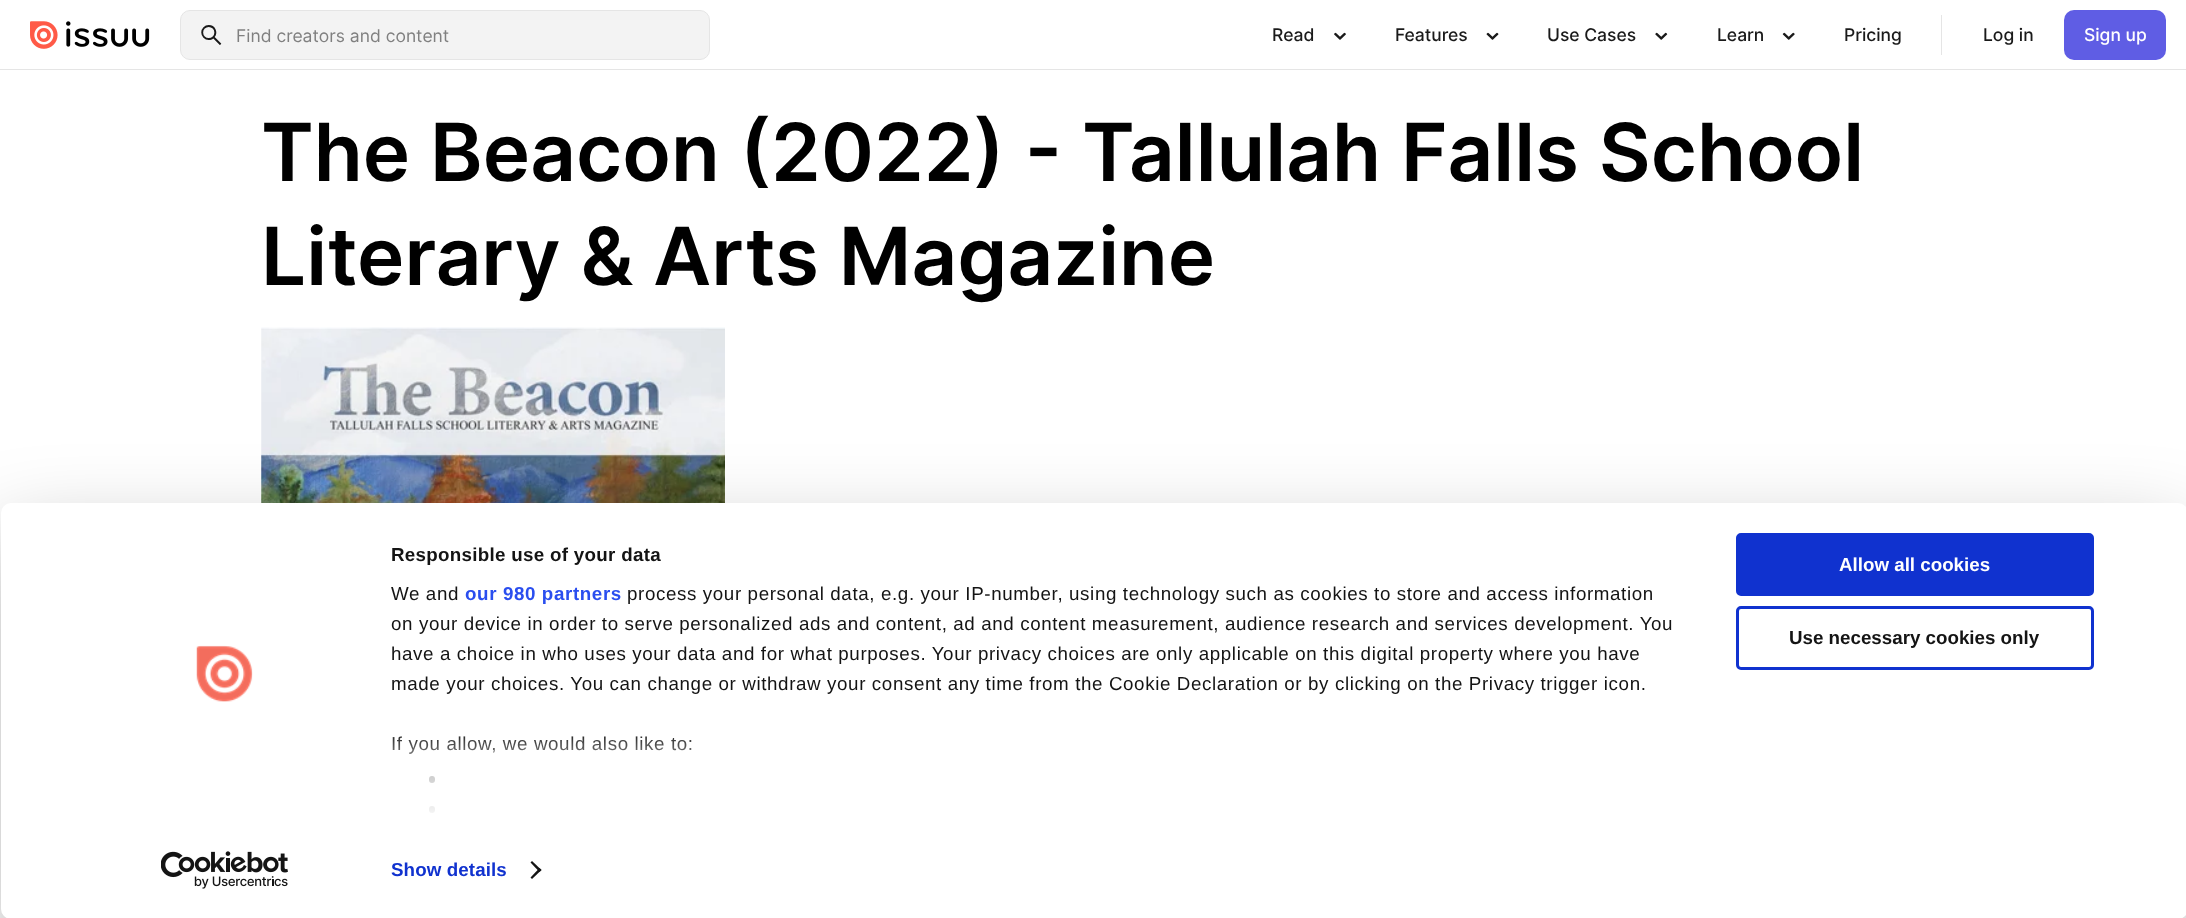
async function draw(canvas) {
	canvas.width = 2186;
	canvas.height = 918;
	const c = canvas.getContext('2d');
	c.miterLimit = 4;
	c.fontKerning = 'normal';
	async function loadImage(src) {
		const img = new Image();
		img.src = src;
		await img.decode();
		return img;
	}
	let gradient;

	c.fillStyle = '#fff';
	c.fillRect(0, 0, 2186, 918);
	c.fillStyle = '#e5e5e5';
	c.fillRect(0, 69, 2186, 1);
	c.drawImage(await loadImage('img1.png'), 30, 21, 120, 28);
	c.fillStyle = '#f3f3f3';
	c.beginPath();
	c.roundRect(180.5, 10.5, 529, 49, 9.5);
	c.fill();
	c.strokeStyle = '#e5e5e5';
	c.stroke();
	c.drawImage(await loadImage('img2.png'), 201, 25, 21, 20);
	c.font = '17.5px Inter';
	c.fillStyle = '#808080';
	c.fillText('Find creators and content', 236, 42);
	c.font = '500 17.5px Inter';
	c.fillStyle = '#1a1a1a';
	c.fillText('Read', 1272, 41);
	c.drawImage(await loadImage('img3.png'), 1334, 32, 12, 8);
	c.fillText('Features', 1395, 41);
	c.drawImage(await loadImage('img4.png'), 1486, 32, 13, 8);
	c.fillText('Use Cases', 1547, 41);
	c.drawImage(await loadImage('img5.png'), 1655, 32, 13, 8);
	c.fillText('Learn', 1717, 41);
	c.drawImage(await loadImage('img6.png'), 1782, 32, 13, 8);
	c.fillText('Pricing', 1844, 41);
	c.fillStyle = '#e5e5e5';
	c.fillRect(1941, 15, 1, 40);
	c.fillStyle = '#1a1a1a';
	c.fillText('Log in', 1983, 41);
	c.fillStyle = '#5f5de4';
	c.beginPath();
	c.roundRect(2064, 10, 102, 50, 10);
	c.fill();
	c.fillStyle = '#fff';
	c.fillText('Sign up', 2084, 41);
	c.font = '600 80px Inter';
	c.fillStyle = '#000';
	c.fillText('The Beacon (2022) - Tallulah Falls School', 261, 181);
	c.fillText('Literary & Arts Magazine', 261, 285);
	c.drawImage(await loadImage('img7.png'), 261, 327, 464, 176);
	c.fillStyle = '#0000004d';
	c.filter = 'blur(44px)';
	c.beginPath();
	c.roundRect(1, 540, 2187, 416, 10);
	c.fill();
	c.filter = 'none';
	c.fillStyle = '#fff';
	c.beginPath();
	c.roundRect(1, 503, 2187, 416, 10);
	c.fill();
	c.letterSpacing = '0.3px';
	c.font = 'bold 18.75px Liberation Sans';
	c.fillStyle = '#141414';
	c.fillText('Responsible use of your data', 391, 561);
	c.letterSpacing = '0.62px';
	c.font = '18.75px Liberation Sans';
	c.fillText('We and', 391, 600);
	c.font = 'bold 18.75px Liberation Sans';
	c.fillStyle = '#2a4eef';
	c.fillText('our 980 partners', 465, 600);
	c.font = '18.75px Liberation Sans';
	c.fillStyle = '#141414';
	for (const [text, x, y] of [
		['process your personal data, e.g. your IP-number, using technology such as cookies to store and access information', 627, 600],
		['on your device in order to serve personalized ads and content, ad and content measurement, audience research and services development. You', 391, 630],
		['have a choice in who uses your data and for what purposes. Your privacy choices are only applicable on this digital property where you have', 391, 660],
		['made your choices. You can change or withdraw your consent any time from the Cookie Declaration or by clicking on the Privacy trigger icon.', 391, 690],
		['If you allow, we would also like to:', 391, 750],
	]) {
		c.fillText(text, x, y);
	}
	c.beginPath();
	c.roundRect(429, 776, 6, 7, 3);
	c.fill();
	c.beginPath();
	c.roundRect(429, 806, 6, 7, 3);
	c.fill();
	gradient = c.createLinearGradient(1033, 824, 1033, 730);
	gradient.addColorStop(0, '#fff');
	gradient.addColorStop(0.5, '#ffffffcc');
	gradient.addColorStop(1, '#ffffff00');
	c.fillStyle = gradient;
	c.fillRect(392, 736, 300, 77);
	c.letterSpacing = '0.1px';
	c.font = 'bold 18.75px Liberation Sans';
	c.fillStyle = '#1032cf';
	c.fillText('Show details', 391, 876);
	c.fillStyle = '#141414';
	c.beginPath();
	c.moveTo(532, 861);
	c.lineTo(541.5, 870);
	c.lineTo(539.5, 872);
	c.lineTo(530.5, 862.5);
	c.closePath();
	c.fill();
	c.beginPath();
	c.moveTo(539.5, 868);
	c.lineTo(541.5, 870);
	c.lineTo(532, 879);
	c.lineTo(530.5, 877.5);
	c.closePath();
	c.fill();
	c.fillStyle = '#1032cf';
	c.beginPath();
	c.roundRect(1737.5, 534.5, 355, 60, 3.5);
	c.fill();
	c.strokeStyle = '#1032cf';
	c.lineWidth = 3;
	c.stroke();
	c.letterSpacing = '0px';
	c.fillStyle = '#fff';
	c.fillText('Allow all cookies', 1839, 571);
	c.beginPath();
	c.roundRect(1737.5, 607.5, 355, 61, 3.5);
	c.stroke();
	c.fillStyle = '#141414';
	c.fillText('Use necessary cookies only', 1789, 644);
	c.drawImage(await loadImage('img8.png'), 196, 645, 57, 57);
	c.drawImage(await loadImage('img9.png'), 161, 851, 127, 38);
}

draw(document.querySelector('canvas'));
